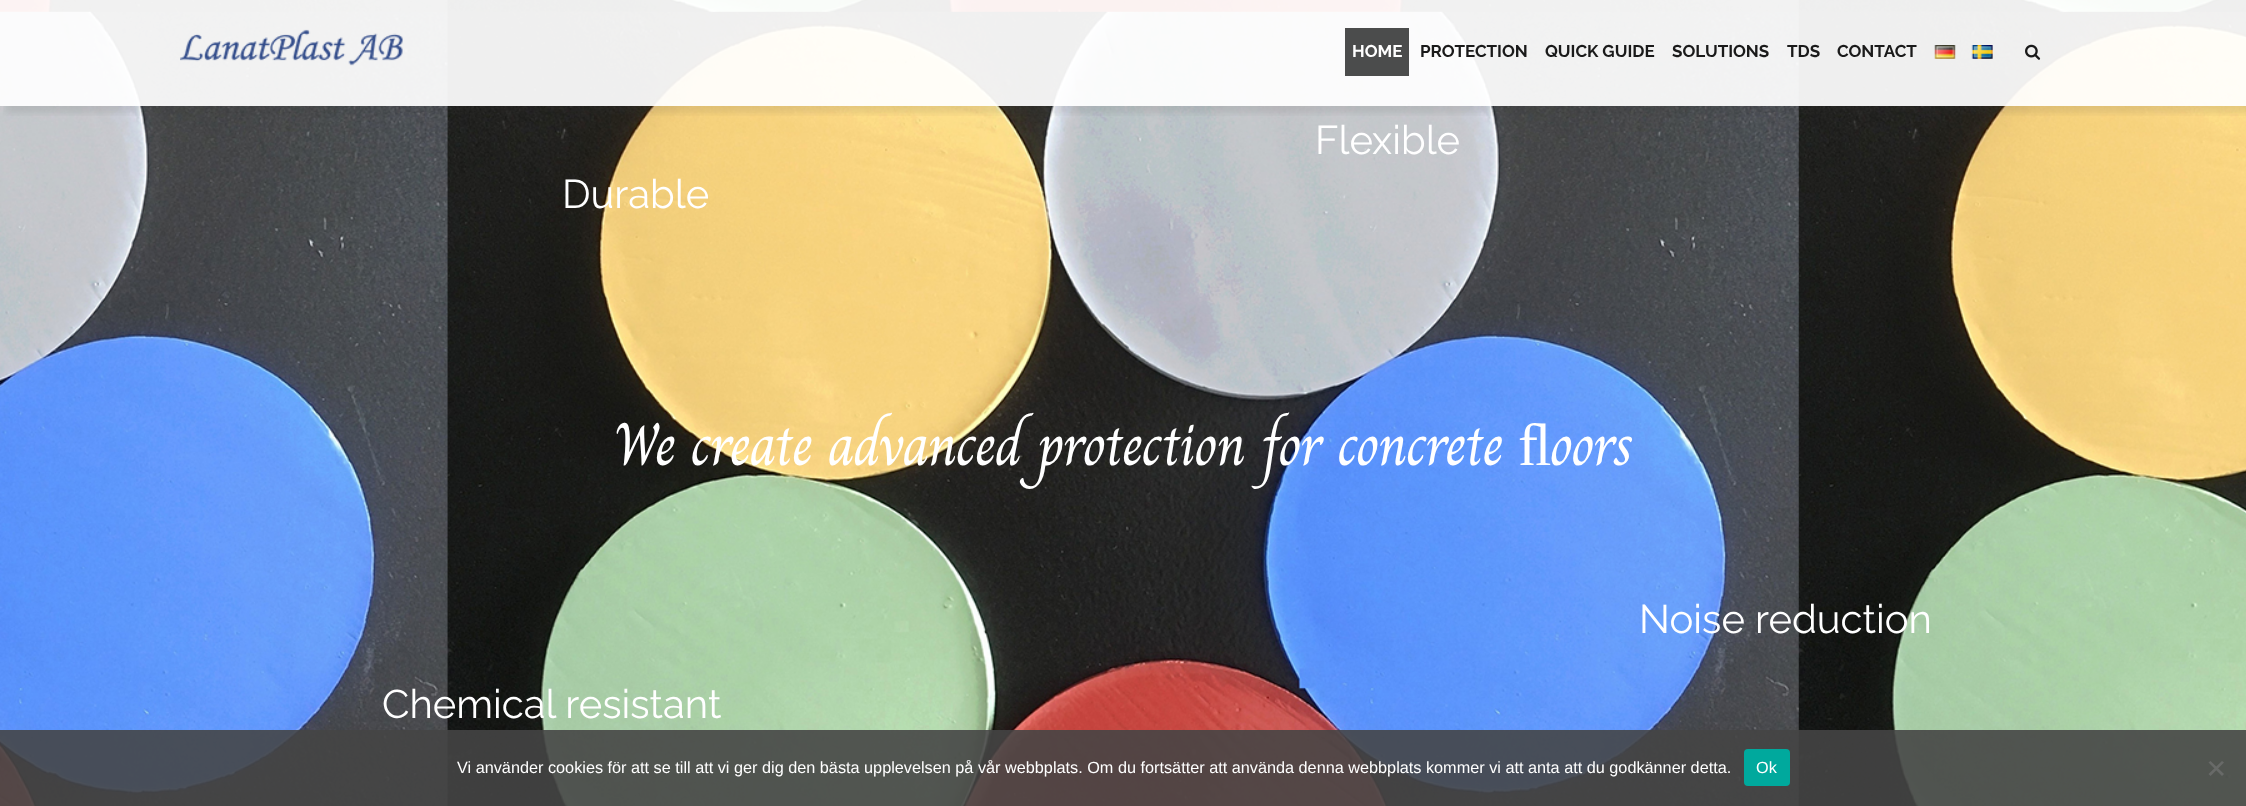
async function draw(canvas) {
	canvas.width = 2246;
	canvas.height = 806;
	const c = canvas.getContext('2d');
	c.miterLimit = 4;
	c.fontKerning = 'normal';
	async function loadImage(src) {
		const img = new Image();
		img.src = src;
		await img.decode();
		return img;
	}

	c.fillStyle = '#fff';
	c.fillRect(0, 0, 2246, 806);
	c.drawImage(await loadImage('img5.png'), 0, 0, 2246, 806);
	c.save();
	c.beginPath();
	c.rect(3, 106, 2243, 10);
	c.clip();
	c.fillStyle = '#3838381c';
	c.filter = 'blur(3px)';
	c.beginPath();
	c.rect(6, 6, 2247, 107);
	c.fill();
	c.filter = 'none';
	c.restore();
	c.fillStyle = '#ffffffed';
	c.fillRect(0, 0, 2246, 106);
	c.drawImage(await loadImage('img1.png'), 180, 29, 223, 37);
	c.fillStyle = '#4b4c4c';
	c.fillRect(1345, 28, 64, 48);
	c.font = 'bold 17px Raleway';
	c.fillStyle = '#fff';
	c.fillText('HOME', 1352, 57);
	c.fillStyle = '#1a1a1a';
	for (const [text, x, y] of [
		['PROTECTION', 1420, 57],
		['QUICK GUIDE', 1545, 57],
		['SOLUTIONS', 1672, 57],
		['TDS', 1787, 57],
		['CONTACT', 1837, 57],
	]) {
		c.fillText(text, x, y);
	}
	c.drawImage(await loadImage('img2.png'), 1934, 45, 22, 14);
	c.drawImage(await loadImage('img3.png'), 1971, 45, 22, 14);
	c.drawImage(await loadImage('img4.png'), 2025, 44, 16, 16);
	c.font = '40px Raleway';
	c.fillStyle = '#fff';
	c.fillText('Flexible', 1315, 154);
	c.fillText('Durable', 562, 208);
	c.letterSpacing = '-1.25px';
	c.font = '60px Charm';
	c.fillText('We create advanced protection for concrete', 614, 465);
	c.font = '60px Liberation Serif';
	c.fillText('ﬂ', 1518, 465);
	c.font = '60px Charm';
	c.fillText('oors', 1550, 465);
	c.letterSpacing = '0px';
	c.font = '40px Raleway';
	c.fillText('Noise reduction', 1639, 633);
	c.fillText('Chemical resistant', 382, 718);
	c.fillStyle = '#444444e3';
	c.fillRect(0, 730, 2246, 76);
	c.font = '16.25px Liberation Sans';
	c.fillStyle = '#fff';
	c.fillText('Vi använder cookies för att se till att vi ger dig den bästa upplevelsen på vår webbplats. Om du fortsätter att använda denna webbplats kommer vi att anta att du godkänner detta.', 457, 773);
	c.fillStyle = '#00a99d';
	c.beginPath();
	c.roundRect(1744, 749, 46, 37, 4);
	c.fill();
	c.fillStyle = '#fff';
	c.fillText('Ok', 1756, 773);
	c.fillStyle = '#686a68';
	c.beginPath();
	c.moveTo(2222, 761);
	c.lineTo(2224, 762.5);
	c.lineTo(2210.5, 776);
	c.lineTo(2208.5, 774);
	c.closePath();
	c.fill();
	c.beginPath();
	c.moveTo(2208.5, 762.5);
	c.lineTo(2210.5, 761);
	c.lineTo(2224, 774);
	c.lineTo(2222, 776);
	c.closePath();
	c.fill();
}

draw(document.querySelector('canvas'));
